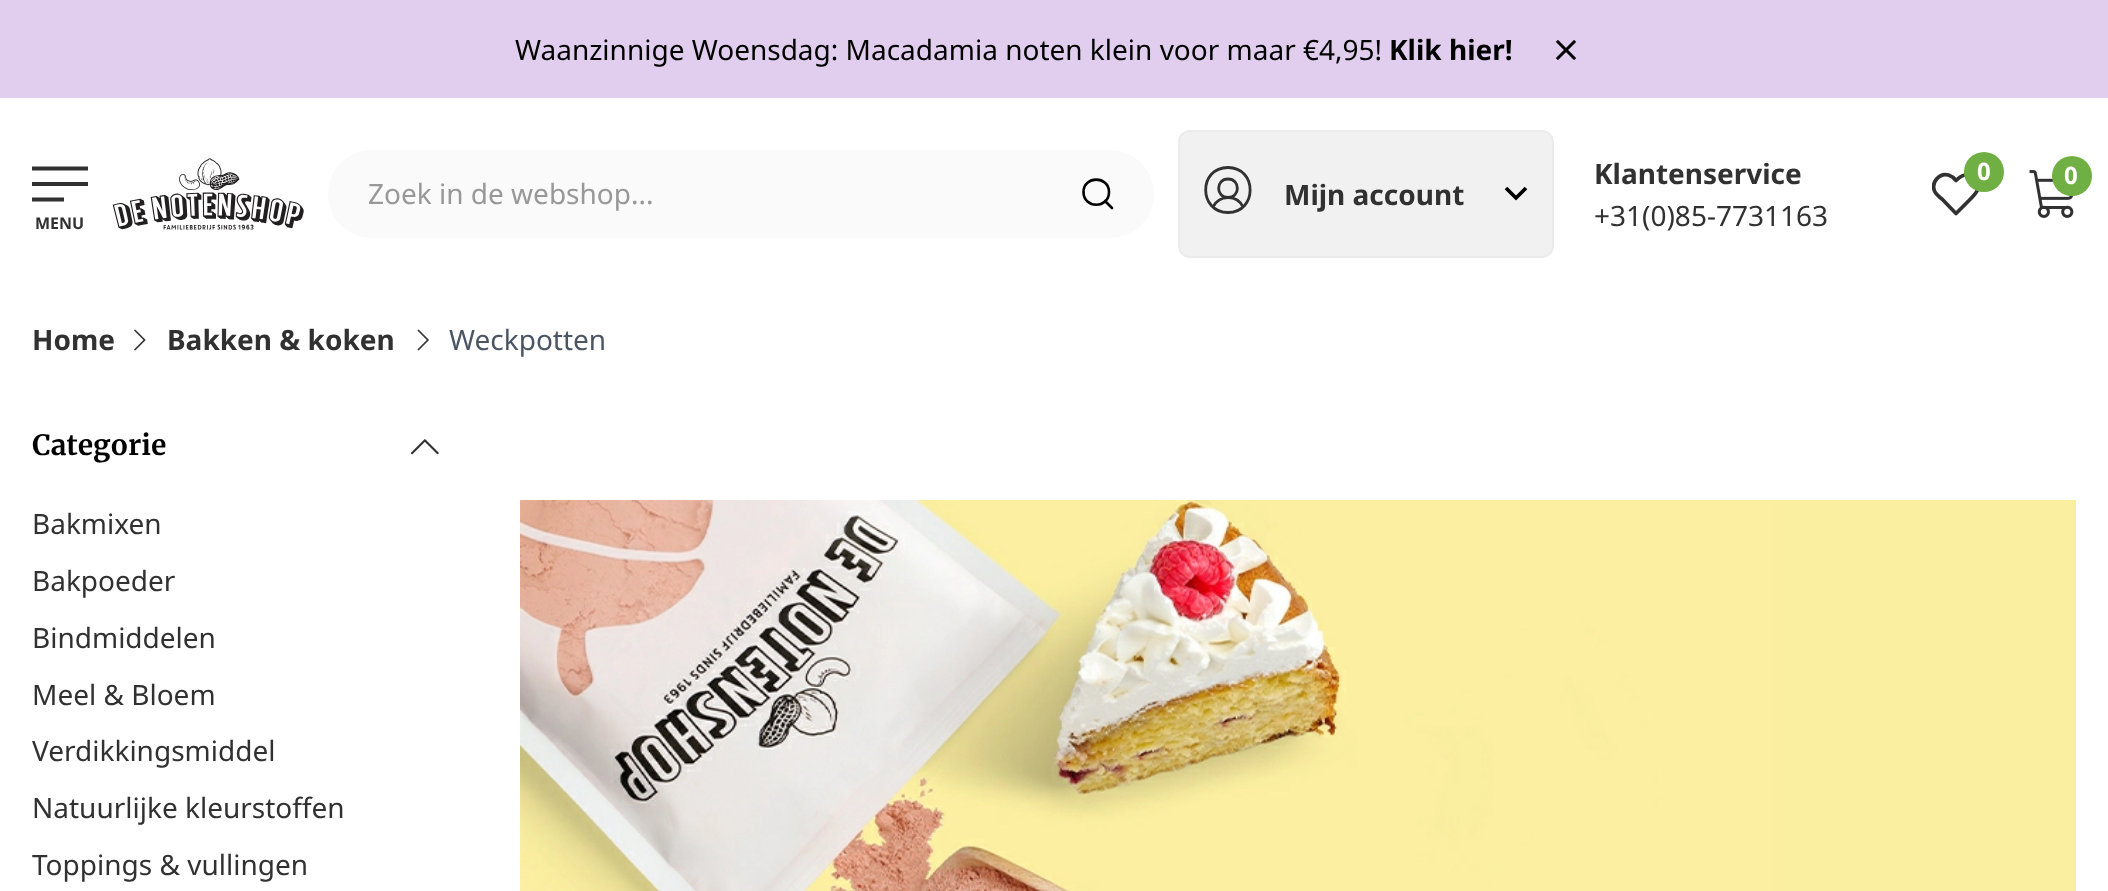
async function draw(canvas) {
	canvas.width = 2108;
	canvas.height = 891;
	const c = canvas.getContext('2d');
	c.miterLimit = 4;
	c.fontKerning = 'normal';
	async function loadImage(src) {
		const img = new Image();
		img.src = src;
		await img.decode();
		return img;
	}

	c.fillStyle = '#fff';
	c.fillRect(0, 0, 2108, 891);
	c.fillStyle = '#e1ceef';
	c.fillRect(0, 0, 2108, 98);
	c.font = '28px Noto Sans';
	c.fillStyle = '#000';
	c.fillText('Waanzinnige Woensdag: Macadamia noten klein voor maar €4,95!', 515, 60);
	c.font = 'bold 28px Noto Sans';
	c.fillText('Klik hier!', 1389, 60);
	c.drawImage(await loadImage('img1.png'), 1556, 40, 20, 20);
	c.drawImage(await loadImage('img2.png'), 112, 158, 192, 72);
	c.fillStyle = '#fafafa';
	c.beginPath();
	c.roundRect(328, 150, 826, 88, 44);
	c.fill();
	c.font = '28px Noto Sans';
	c.fillStyle = '#989898';
	c.fillText('Zoek in de webshop...', 368, 204);
	c.beginPath();
	c.moveTo(1109, 192);
	c.bezierCurveTo(1109, 209, 1083.5, 209, 1083.5, 192);
	c.bezierCurveTo(1083.5, 175.5, 1109, 175.5, 1109, 192);
	c.closePath();
	c.moveTo(1112, 208);
	c.lineTo(1105, 201);
	c.strokeStyle = '#000';
	c.lineWidth = 2.6;
	c.lineCap = 'round';
	c.lineJoin = 'round';
	c.stroke();
	c.font = 'bold 28px Noto Sans';
	c.fillStyle = '#313131';
	c.fillText('Klantenservice', 1594, 184);
	c.font = '28px Noto Sans';
	c.fillText('+31(0)85-7731163', 1594, 226);
	c.save();
	c.beginPath();
	c.rect(1932, 170, 48, 48);
	c.clip();
	c.beginPath();
	c.moveTo(1974.5, 178);
	c.bezierCurveTo(1968.5, 172, 1961.5, 175, 1956, 180.5);
	c.bezierCurveTo(1954, 178, 1951.5, 176, 1948.5, 175);
	c.bezierCurveTo(1939.5, 172.5, 1931, 182, 1934.5, 191);
	c.bezierCurveTo(1936, 194.5, 1939.5, 197, 1942.5, 199.5);
	c.lineTo(1956, 213.5);
	c.lineTo(1967, 202.5);
	c.bezierCurveTo(1973.5, 196, 1984, 187.5, 1975, 178);
	c.closePath();
	c.strokeStyle = '#313131';
	c.lineWidth = 3.7;
	c.stroke();
	c.restore();
	c.fillStyle = '#70af43';
	c.beginPath();
	c.arc(1984, 172, 20, 0, 2 * Math.PI);
	c.fill();
	c.font = 'bold 24px Noto Sans';
	c.fillStyle = '#fff';
	c.fillText('0', 1977, 180);
	c.drawImage(await loadImage('img3.png'), 2029, 170, 45, 48);
	c.fillStyle = '#70af43';
	c.beginPath();
	c.arc(2072, 176, 20, 0, 2 * Math.PI);
	c.fill();
	c.fillStyle = '#fff';
	c.fillText('0', 2064, 184);
	c.fillStyle = '#f1f1f1';
	c.beginPath();
	c.roundRect(1179, 131, 374, 126, 11);
	c.fill();
	c.strokeStyle = '#ebebeb';
	c.lineWidth = 2;
	c.lineJoin = 'miter';
	c.stroke();
	c.beginPath();
	c.moveTo(1228, 212.5);
	c.bezierCurveTo(1257.5, 212.5, 1257.5, 167.5, 1228, 167.5);
	c.bezierCurveTo(1198, 167.5, 1198.5, 212.5, 1228, 212.5);
	c.closePath();
	c.moveTo(1228, 197.5);
	c.bezierCurveTo(1240.5, 197.5, 1240.5, 179, 1228, 179);
	c.bezierCurveTo(1215.5, 179, 1215.5, 197.5, 1228, 197.5);
	c.closePath();
	c.moveTo(1213, 207);
	c.bezierCurveTo(1219, 195, 1237, 194, 1243, 207);
	c.strokeStyle = '#313131';
	c.lineWidth = 2.8;
	c.lineCap = 'butt';
	c.stroke();
	c.font = 'bold 28px Noto Sans';
	c.fillStyle = '#313131';
	c.fillText('Mijn account', 1284, 205);
	c.beginPath();
	c.moveTo(1506, 188);
	c.lineTo(1516, 198);
	c.lineTo(1526, 188);
	c.strokeStyle = '#000';
	c.lineWidth = 3.7;
	c.stroke();
	c.beginPath();
	c.moveTo(32, 168.5);
	c.lineTo(88, 168.5);
	c.strokeStyle = '#313131';
	c.lineWidth = 4;
	c.stroke();
	c.fillRect(32, 182, 56, 4);
	c.beginPath();
	c.moveTo(32, 199.5);
	c.lineTo(64, 199.5);
	c.stroke();
	c.font = 'bold 16px Noto Sans';
	c.fillText('MENU', 35, 229);
	c.font = 'bold 28px Noto Sans';
	c.fillText('Home', 32, 350);
	c.drawImage(await loadImage('img4.png'), 134, 329, 12, 22);
	c.fillText('Bakken & koken', 167, 350);
	c.drawImage(await loadImage('img5.png'), 417, 329, 12, 22);
	c.font = '28px Noto Sans';
	c.fillStyle = '#4b5563';
	c.fillText('Weckpotten', 449, 350);
	c.font = 'bold 28px Merriweather';
	c.fillStyle = '#000';
	c.fillText('Categorie', 32, 455);
	c.drawImage(await loadImage('img6.png'), 411, 439, 28, 16);
	c.font = '28px Noto Sans';
	c.fillStyle = '#313131';
	for (const [text, x, y] of [
		['Bakmixen', 32, 534],
		['Bakpoeder', 32, 591],
		['Bindmiddelen', 32, 648],
		['Meel & Bloem', 32, 705],
		['Verdikkingsmiddel', 32, 761],
		['Natuurlijke kleurstoffen', 32, 818],
		['Toppings & vullingen', 32, 875],
	]) {
		c.fillText(text, x, y);
	}
	c.drawImage(await loadImage('img7.png'), 520, 500, 1556, 391);
}

draw(document.querySelector('canvas'));
